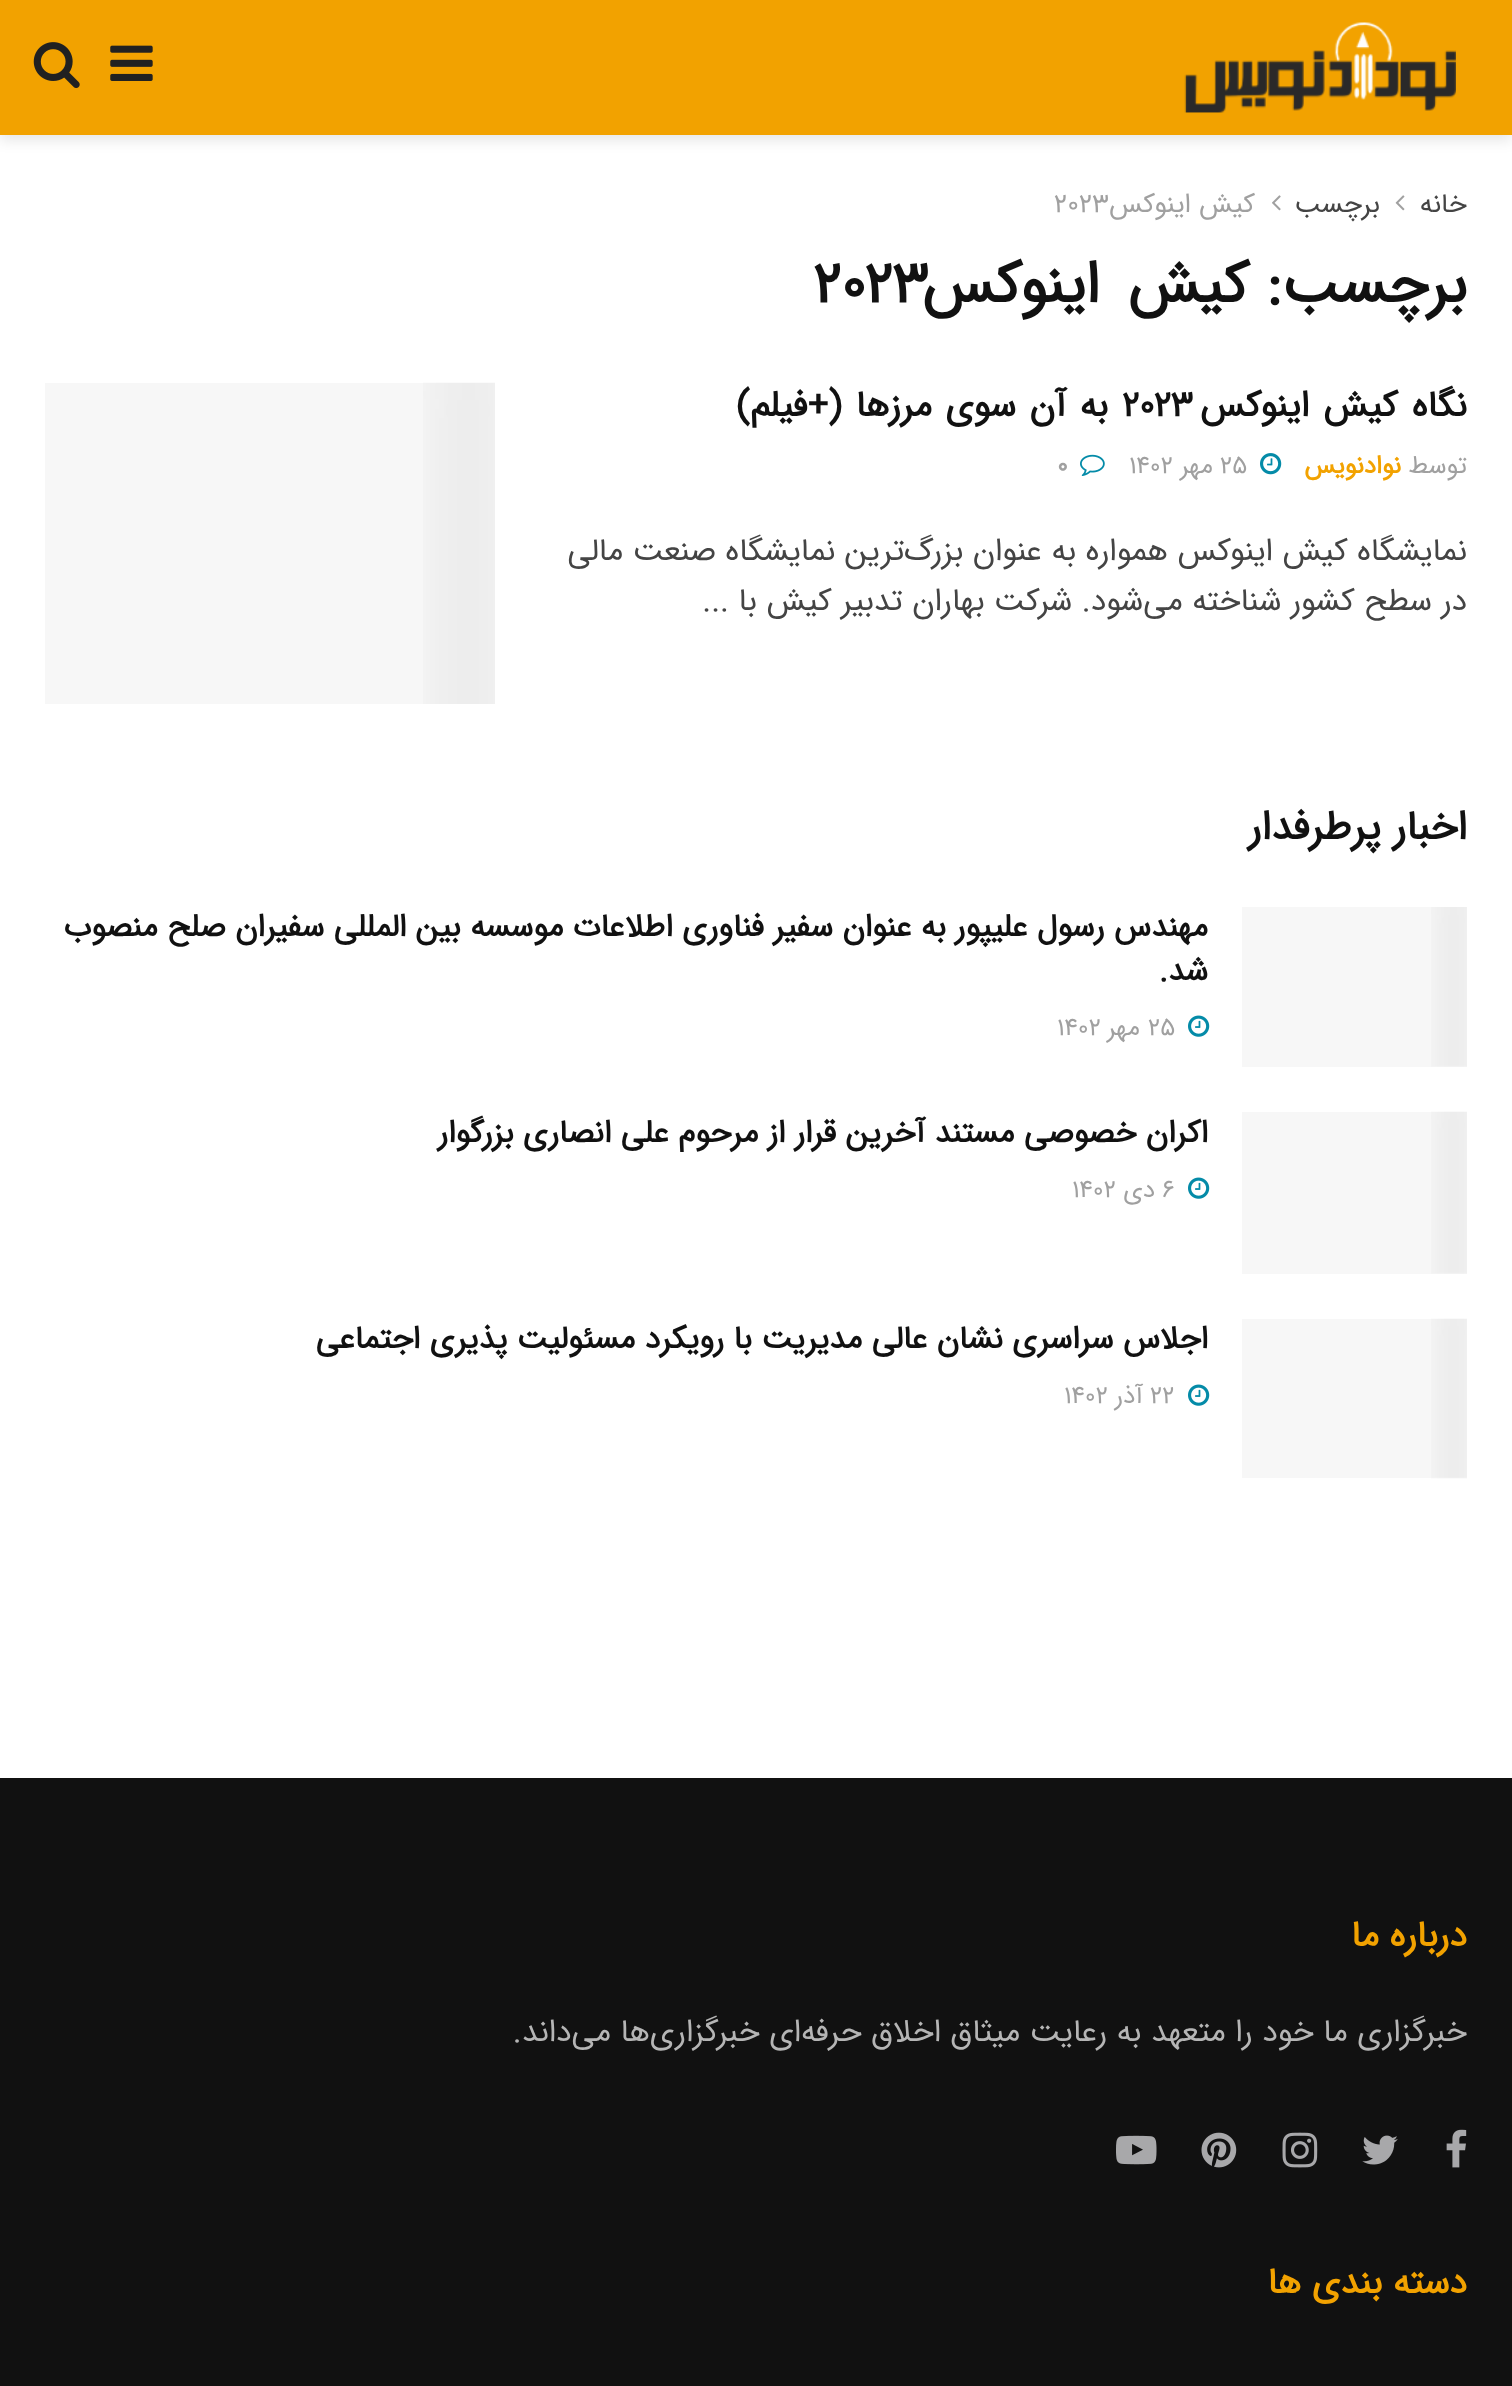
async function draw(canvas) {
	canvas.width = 1512;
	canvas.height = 2386;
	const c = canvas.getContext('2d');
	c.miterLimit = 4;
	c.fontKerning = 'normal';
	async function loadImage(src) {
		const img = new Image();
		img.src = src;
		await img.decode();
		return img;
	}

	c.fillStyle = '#fff';
	c.fillRect(0, 0, 1512, 2386);
	c.fillStyle = '#0000001a';
	c.filter = 'blur(7px)';
	c.beginPath();
	c.rect(0, 5, 1512, 135);
	c.fill();
	c.filter = 'none';
	c.fillStyle = '#f2a200';
	c.fillRect(0, 0, 1512, 135);
	c.drawImage(await loadImage('img1.png'), 1184, 22, 272, 91);
	c.drawImage(await loadImage('img2.png'), 110, 45, 43, 36);
	c.drawImage(await loadImage('img3.png'), 33, 42, 47, 47);
	c.direction = 'rtl';
	c.font = '27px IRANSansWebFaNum';
	c.fillStyle = '#444';
	c.fillText('خانه', 1467, 212);
	c.drawImage(await loadImage('img4.png'), 1395, 195, 10, 16);
	c.fillText('برچسب', 1380, 212);
	c.drawImage(await loadImage('img5.png'), 1272, 195, 9, 16);
	c.fillStyle = '#a0a0a0';
	c.fillText('کیش اینوکس', 1255, 212);
	c.direction = 'ltr';
	c.fillText('2023', 1054, 212);
	c.letterSpacing = '-1.25px';
	c.direction = 'rtl';
	c.font = 'bold 58.5px IRANSansWebFaNum';
	c.fillStyle = '#111';
	c.fillText('برچسب:', 1467, 302);
	c.wordSpacing = '12px';
	c.fillText('کیش اینوکس', 1249, 302);
	c.wordSpacing = '0px';
	c.direction = 'ltr';
	c.fillText('2023', 813, 302);
	c.letterSpacing = '-0.75px';
	c.wordSpacing = '4px';
	c.direction = 'rtl';
	c.font = 'bold 36px IRANSansWebFaNum';
	c.fillText('نگاه کیش اینوکس', 1467, 416);
	c.wordSpacing = '0px';
	c.direction = 'ltr';
	c.fillText('2023', 1122, 416);
	c.wordSpacing = '3.5px';
	c.direction = 'rtl';
	c.fillText('به آن‌ سوی مرزها (+فیلم)', 1108, 416);
	c.letterSpacing = '0px';
	c.wordSpacing = '0px';
	c.font = '25px IRANSansWebFaNum';
	c.fillStyle = '#a0a0a0';
	c.fillText('توسط', 1467, 473);
	c.font = 'bold 25px IRANSansWebFaNum';
	c.fillStyle = '#f2a200';
	c.fillText('نوادنویس', 1401, 473);
	c.drawImage(await loadImage('img6.png'), 1260, 453, 22, 22);
	c.direction = 'ltr';
	c.font = '25px IRANSansWebFaNum';
	c.fillStyle = '#a0a0a0';
	c.fillText('25', 1220, 473);
	c.direction = 'rtl';
	c.fillText('مهر', 1213, 473);
	c.direction = 'ltr';
	c.fillText('1402', 1129, 473);
	c.drawImage(await loadImage('img7.png'), 1080, 454, 25, 22);
	c.font = 'bold 25px IRANSansWebFaNum';
	c.fillText('0', 1057, 473);
	c.direction = 'rtl';
	c.font = '31.5px IRANSansWebFaNum';
	c.fillStyle = '#444';
	c.fillText('نمایشگاه کیش اینوکس همواره به عنوان بزرگ‌ترین نمایشگاه صنعت مالی', 1467, 560);
	c.fillText('در سطح کشور شناخته می‌شود. شرکت بهاران تدبیر کیش با ...', 1467, 610);
	c.fillStyle = '#f7f7f7';
	c.fillRect(45, 383, 378, 321);
	c.drawImage(await loadImage('img8.png'), 423, 382, 72, 322);
	c.font = 'bold 40.5px IRANSansWebFaNum';
	c.fillStyle = '#111';
	c.fillText('اخبار پرطرفدار', 1467, 839);
	c.fillStyle = '#f7f7f7';
	c.fillRect(1242, 907, 225, 160);
	c.drawImage(await loadImage('img9.png'), 1431, 907, 36, 160);
	c.font = 'bold 31.5px IRANSansWebFaNum';
	c.fillStyle = '#111';
	c.fillText('مهندس رسول علیپور به عنوان سفیر فناوری اطلاعات موسسه بین المللی سفیران صلح منصوب', 1208, 936);
	c.fillText('شد.', 1208, 980);
	c.drawImage(await loadImage('img10.png'), 1188, 1015, 22, 22);
	c.direction = 'ltr';
	c.font = '25px IRANSansWebFaNum';
	c.fillStyle = '#a0a0a0';
	c.fillText('25', 1148, 1035);
	c.direction = 'rtl';
	c.fillText('مهر', 1140, 1035);
	c.direction = 'ltr';
	c.fillText('1402', 1057, 1035);
	c.fillStyle = '#f7f7f7';
	c.fillRect(1242, 1112, 225, 162);
	c.drawImage(await loadImage('img11.png'), 1431, 1111, 36, 163);
	c.direction = 'rtl';
	c.font = 'bold 31.5px IRANSansWebFaNum';
	c.fillStyle = '#111';
	c.fillText('اکران خصوصی مستند آخرین قرار از مرحوم علی انصاری بزرگوار', 1208, 1142);
	c.drawImage(await loadImage('img10.png'), 1188, 1177, 22, 22);
	c.direction = 'ltr';
	c.font = '25px IRANSansWebFaNum';
	c.fillStyle = '#a0a0a0';
	c.fillText('6', 1162, 1197);
	c.direction = 'rtl';
	c.fillText('دی', 1155, 1197);
	c.direction = 'ltr';
	c.fillText('1402', 1072, 1197);
	c.fillStyle = '#f7f7f7';
	c.fillRect(1242, 1319, 225, 159);
	c.drawImage(await loadImage('img12.png'), 1431, 1318, 36, 161);
	c.direction = 'rtl';
	c.font = 'bold 31.5px IRANSansWebFaNum';
	c.fillStyle = '#111';
	c.fillText('اجلاس سراسری نشان عالی مدیریت با رویکرد مسئولیت پذیری اجتماعی', 1208, 1348);
	c.drawImage(await loadImage('img10.png'), 1188, 1384, 22, 22);
	c.direction = 'ltr';
	c.font = '25px IRANSansWebFaNum';
	c.fillStyle = '#a0a0a0';
	c.fillText('22', 1150, 1403);
	c.direction = 'rtl';
	c.fillText('آذر', 1143, 1403);
	c.direction = 'ltr';
	c.fillText('1402', 1064, 1403);
	c.fillStyle = '#111';
	c.fillRect(0, 1778, 1512, 608);
	c.direction = 'rtl';
	c.font = 'bold 36px IRANSansWebFaNum';
	c.fillStyle = '#f2a200';
	c.fillText('درباره ما', 1467, 1946);
	c.font = '31.5px IRANSansWebFaNum';
	c.fillStyle = '#b5b5b5';
	c.fillText('خبرگزاری ما خود را متعهد به رعایت میثاق اخلاق حرفه‌ای خبرگزاری‌ها می‌داند.', 1467, 2041);
	c.drawImage(await loadImage('img13.png'), 1446, 2129, 21, 39);
	c.drawImage(await loadImage('img14.png'), 1362, 2135, 36, 30);
	c.drawImage(await loadImage('img15.png'), 1282, 2132, 36, 36);
	c.drawImage(await loadImage('img16.png'), 1201, 2132, 36, 36);
	c.drawImage(await loadImage('img17.png'), 1116, 2135, 41, 30);
	c.font = 'bold 36px IRANSansWebFaNum';
	c.fillStyle = '#f2a200';
	c.fillText('دسته بندی ها', 1467, 2293);
}

draw(document.querySelector('canvas'));
